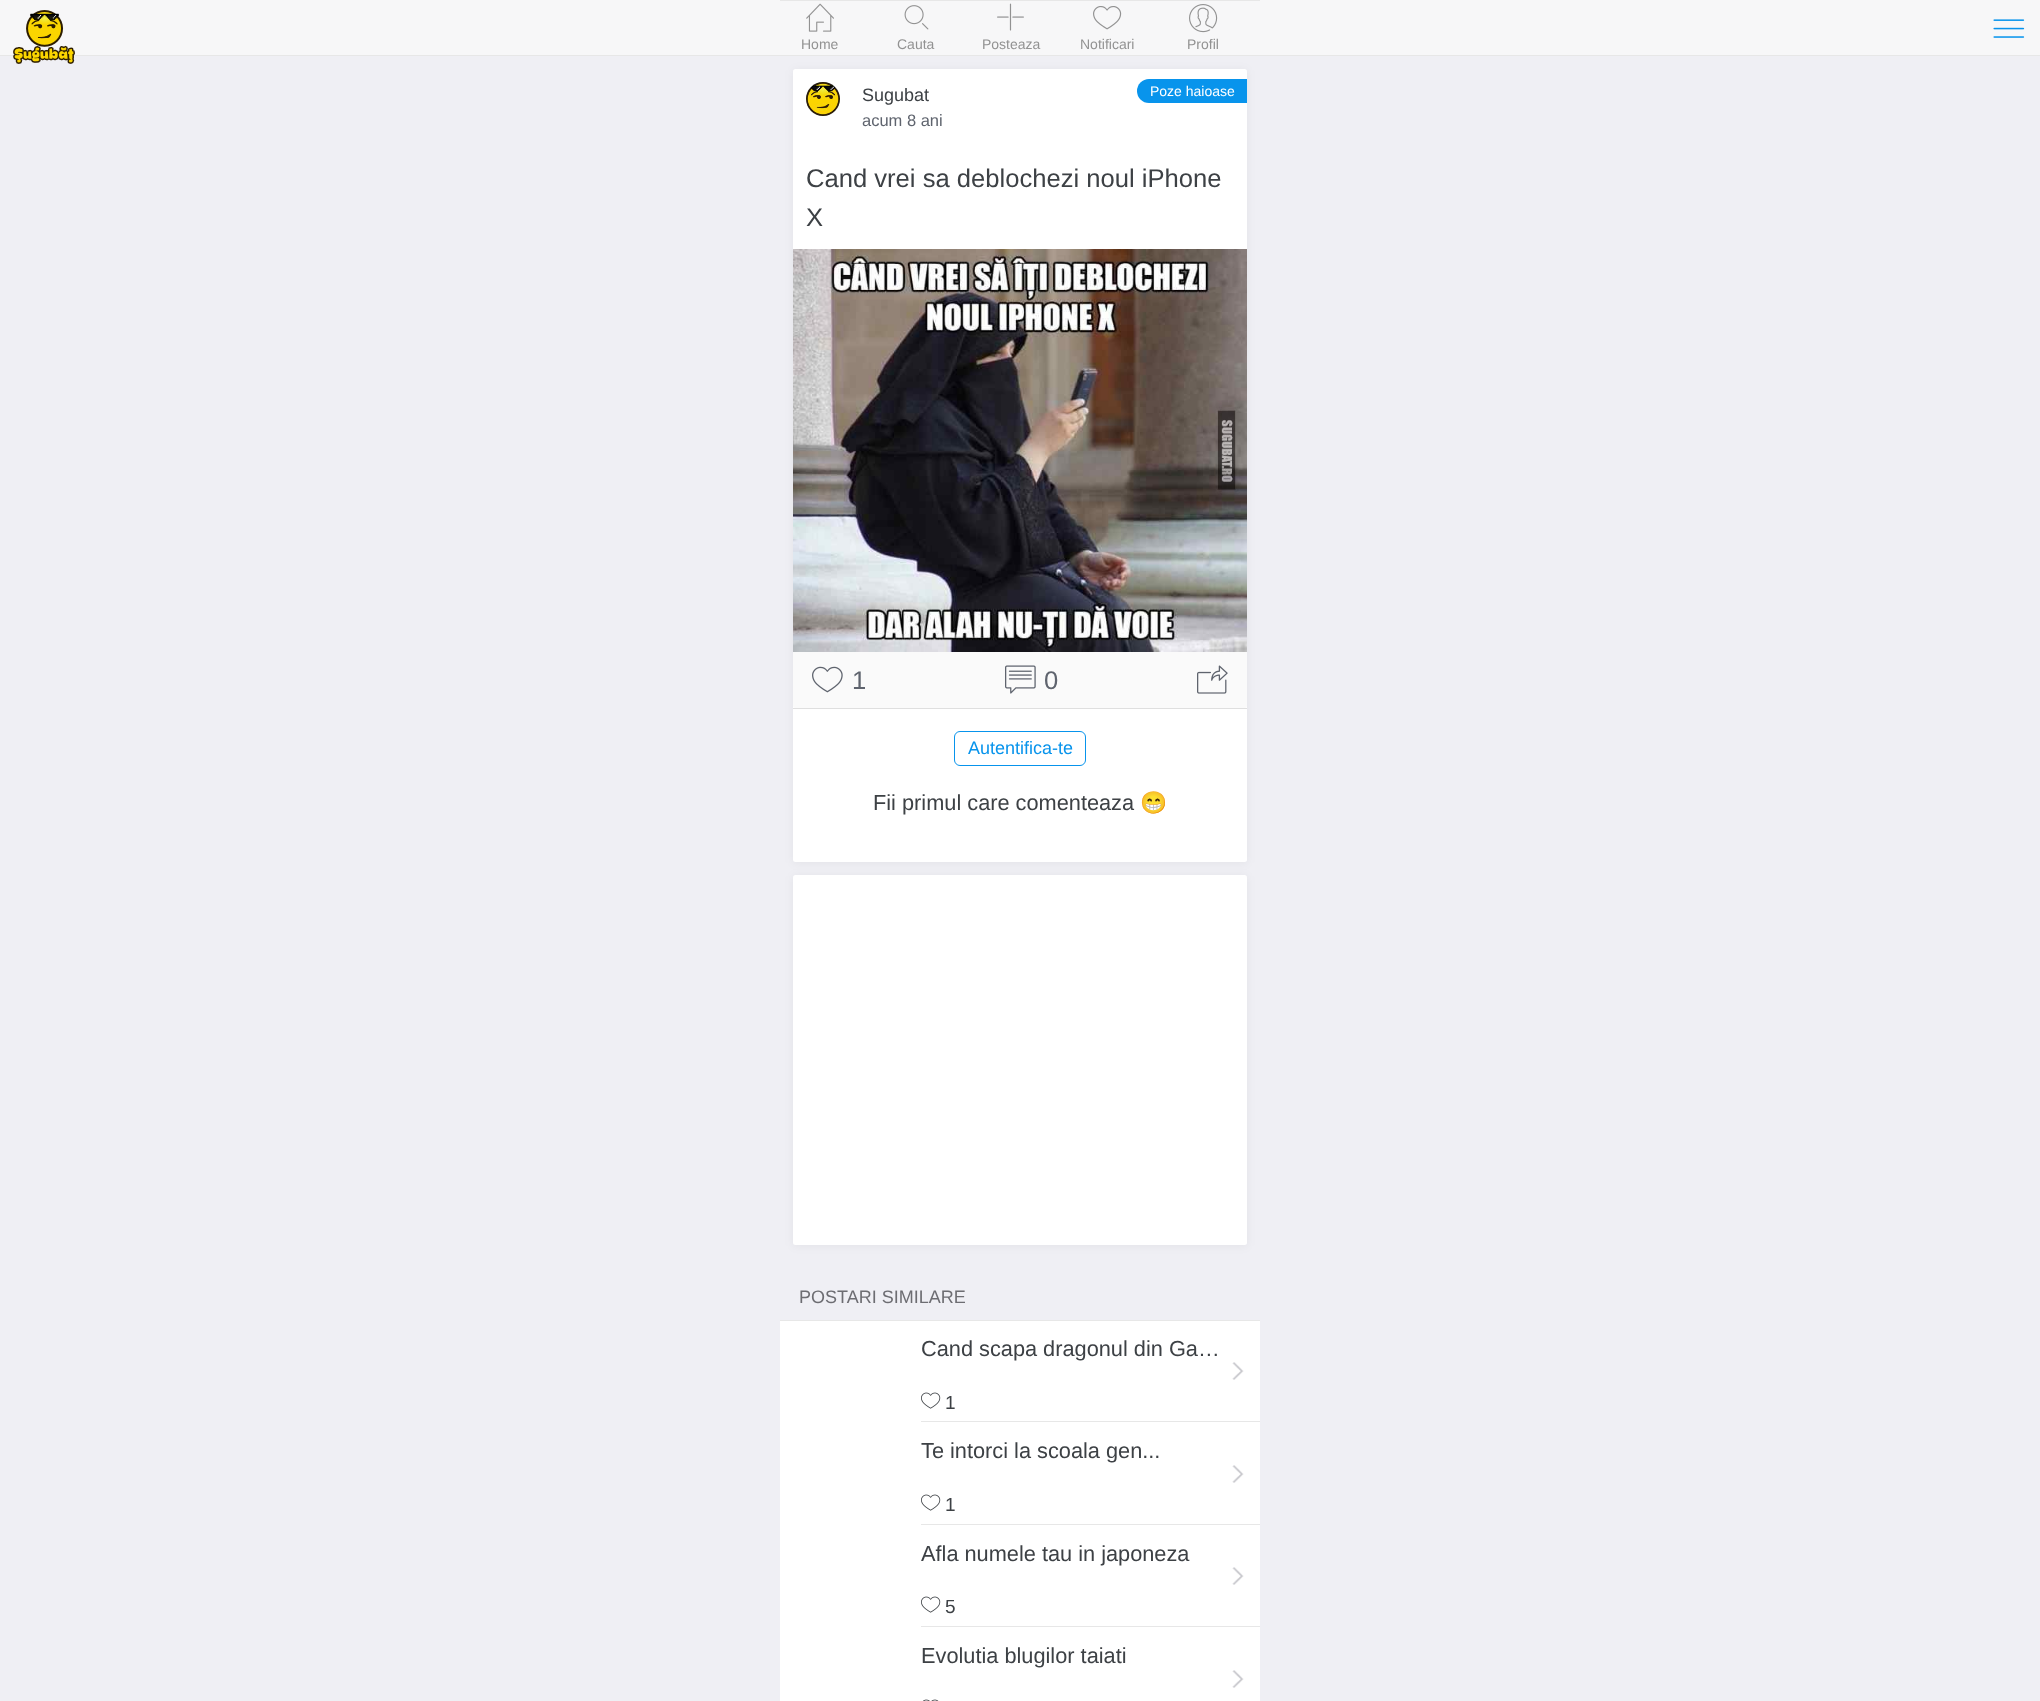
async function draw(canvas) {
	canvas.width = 2040;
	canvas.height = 1701;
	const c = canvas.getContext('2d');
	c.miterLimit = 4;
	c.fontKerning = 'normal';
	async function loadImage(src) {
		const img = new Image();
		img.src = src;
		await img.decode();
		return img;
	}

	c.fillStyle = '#efeff4';
	c.fillRect(0, 0, 2040, 1701);
	c.fillStyle = '#0000000d';
	c.filter = 'blur(5px)';
	c.beginPath();
	c.roundRect(793, 70, 454, 793, 2.5);
	c.fill();
	c.filter = 'none';
	c.fillStyle = '#f7f7f8';
	c.fillRect(0, 0, 2040, 55);
	c.fillStyle = '#e7e7e7';
	c.fillRect(0, 55, 2040, 1);
	c.drawImage(await loadImage('img1.png'), 13, 10, 62, 54);
	c.drawImage(await loadImage('img2.png'), 1993, 19, 32, 19);
	c.fillRect(780, 0, 480, 1);
	c.drawImage(await loadImage('img3.png'), 806, 3, 28, 29);
	c.font = '14px Liberation Sans';
	c.fillStyle = '#929292';
	c.fillText('Home', 801, 49);
	c.drawImage(await loadImage('img4.png'), 904, 5, 25, 25);
	c.fillText('Cauta', 897, 49);
	c.drawImage(await loadImage('img5.png'), 997, 3, 27, 28);
	c.fillText('Posteaza', 982, 49);
	c.drawImage(await loadImage('img6.png'), 1093, 6, 29, 24);
	c.fillText('Notificari', 1080, 49);
	c.drawImage(await loadImage('img7.png'), 1189, 4, 29, 29);
	c.fillText('Profil', 1187, 49);
	c.fillStyle = '#fff';
	c.beginPath();
	c.roundRect(793, 69, 454, 793, 2.5);
	c.fill();
	c.drawImage(await loadImage('img8.png'), 806, 82, 34, 34);
	c.font = '18px Liberation Sans';
	c.fillStyle = '#3d4145';
	c.fillText('Sugubat', 862, 101);
	c.fillStyle = '#0894ec';
	c.beginPath();
	c.roundRect(1137, 79, 110, 24, [12, 0, 0, 12]);
	c.fill();
	c.font = '14px Liberation Sans';
	c.fillStyle = '#fff';
	c.fillText('Poze haioase', 1150, 96);
	c.font = '16.5px Liberation Sans';
	c.fillStyle = '#5f646e';
	c.fillText('acum 8 ani', 862, 126);
	c.font = '25.6px Liberation Sans';
	c.fillStyle = '#3d4145';
	c.fillText('Cand vrei sa deblochezi noul iPhone', 806, 187);
	c.fillText('X', 806, 226);
	c.drawImage(await loadImage('img9.png'), 793, 249, 454, 403);
	c.fillStyle = '#fafafa';
	c.beginPath();
	c.roundRect(793, 652, 454, 56, [0, 0, 2.5, 2.5]);
	c.fill();
	c.drawImage(await loadImage('img10.png'), 812, 666, 31, 27);
	c.fillStyle = '#5f646e';
	c.fillText('1', 852, 689);
	c.drawImage(await loadImage('img11.png'), 1005, 665, 31, 29);
	c.fillText('0', 1044, 689);
	c.drawImage(await loadImage('img12.png'), 1197, 665, 31, 29);
	c.fillStyle = '#dfdfdf';
	c.fillRect(793, 708, 454, 1);
	c.beginPath();
	c.roundRect(954.5, 731.5, 131, 34, 5.5);
	c.strokeStyle = '#0894ec';
	c.stroke();
	c.font = '18px Liberation Sans';
	c.fillStyle = '#0894ec';
	c.fillText('Autentifica-te', 968, 754);
	c.font = '21.75px Liberation Sans';
	c.fillStyle = '#3d4145';
	c.fillText('Fii primul care comenteaza', 873, 810);
	c.font = '21.75px Noto Color Emoji';
	c.fillText('😁', 1140, 810);
	c.fillStyle = '#0000000d';
	c.filter = 'blur(5px)';
	c.beginPath();
	c.roundRect(793, 876, 454, 370, 2.5);
	c.fill();
	c.filter = 'none';
	c.fillStyle = '#fff';
	c.beginPath();
	c.roundRect(793, 875, 454, 370, 2.5);
	c.fill();
	c.font = '18px Liberation Sans';
	c.fillStyle = '#6d6d72';
	c.fillText('POSTARI SIMILARE', 799, 1303);
	c.fillStyle = '#fff';
	c.fillRect(780, 1321, 480, 380);
	c.fillStyle = '#e7e7e7';
	c.fillRect(780, 1320, 480, 1);
	c.drawImage(await loadImage('img13.png'), 1232, 1362, 12, 18);
	c.font = '21.75px Liberation Sans';
	c.fillStyle = '#3d4145';
	c.fillText('Cand scapa dragonul din Ga…', 921, 1356);
	c.drawImage(await loadImage('img14.png'), 921, 1392, 20, 17);
	c.font = '19px Liberation Sans';
	c.fillText('1', 945, 1409);
	c.fillStyle = '#e7e7e7';
	c.fillRect(921, 1421, 339, 1);
	c.drawImage(await loadImage('img13.png'), 1232, 1465, 12, 18);
	c.font = '21.75px Liberation Sans';
	c.fillStyle = '#3d4145';
	c.fillText('Te intorci la scoala gen...', 921, 1458);
	c.drawImage(await loadImage('img14.png'), 921, 1494, 20, 17);
	c.font = '19px Liberation Sans';
	c.fillText('1', 945, 1511);
	c.fillStyle = '#e7e7e7';
	c.fillRect(921, 1524, 339, 1);
	c.drawImage(await loadImage('img13.png'), 1232, 1567, 12, 18);
	c.font = '21.75px Liberation Sans';
	c.fillStyle = '#3d4145';
	c.fillText('Afla numele tau in japoneza', 921, 1561);
	c.drawImage(await loadImage('img14.png'), 921, 1596, 20, 17);
	c.font = '19px Liberation Sans';
	c.fillText('5', 945, 1613);
	c.fillStyle = '#e7e7e7';
	c.fillRect(921, 1626, 339, 1);
	c.drawImage(await loadImage('img13.png'), 1232, 1670, 12, 18);
	c.font = '21.75px Liberation Sans';
	c.fillStyle = '#3d4145';
	c.fillText('Evolutia blugilor taiati', 921, 1663);
	c.drawImage(await loadImage('img15.png'), 923, 1699, 16, 2);
}

draw(document.querySelector('canvas'));
